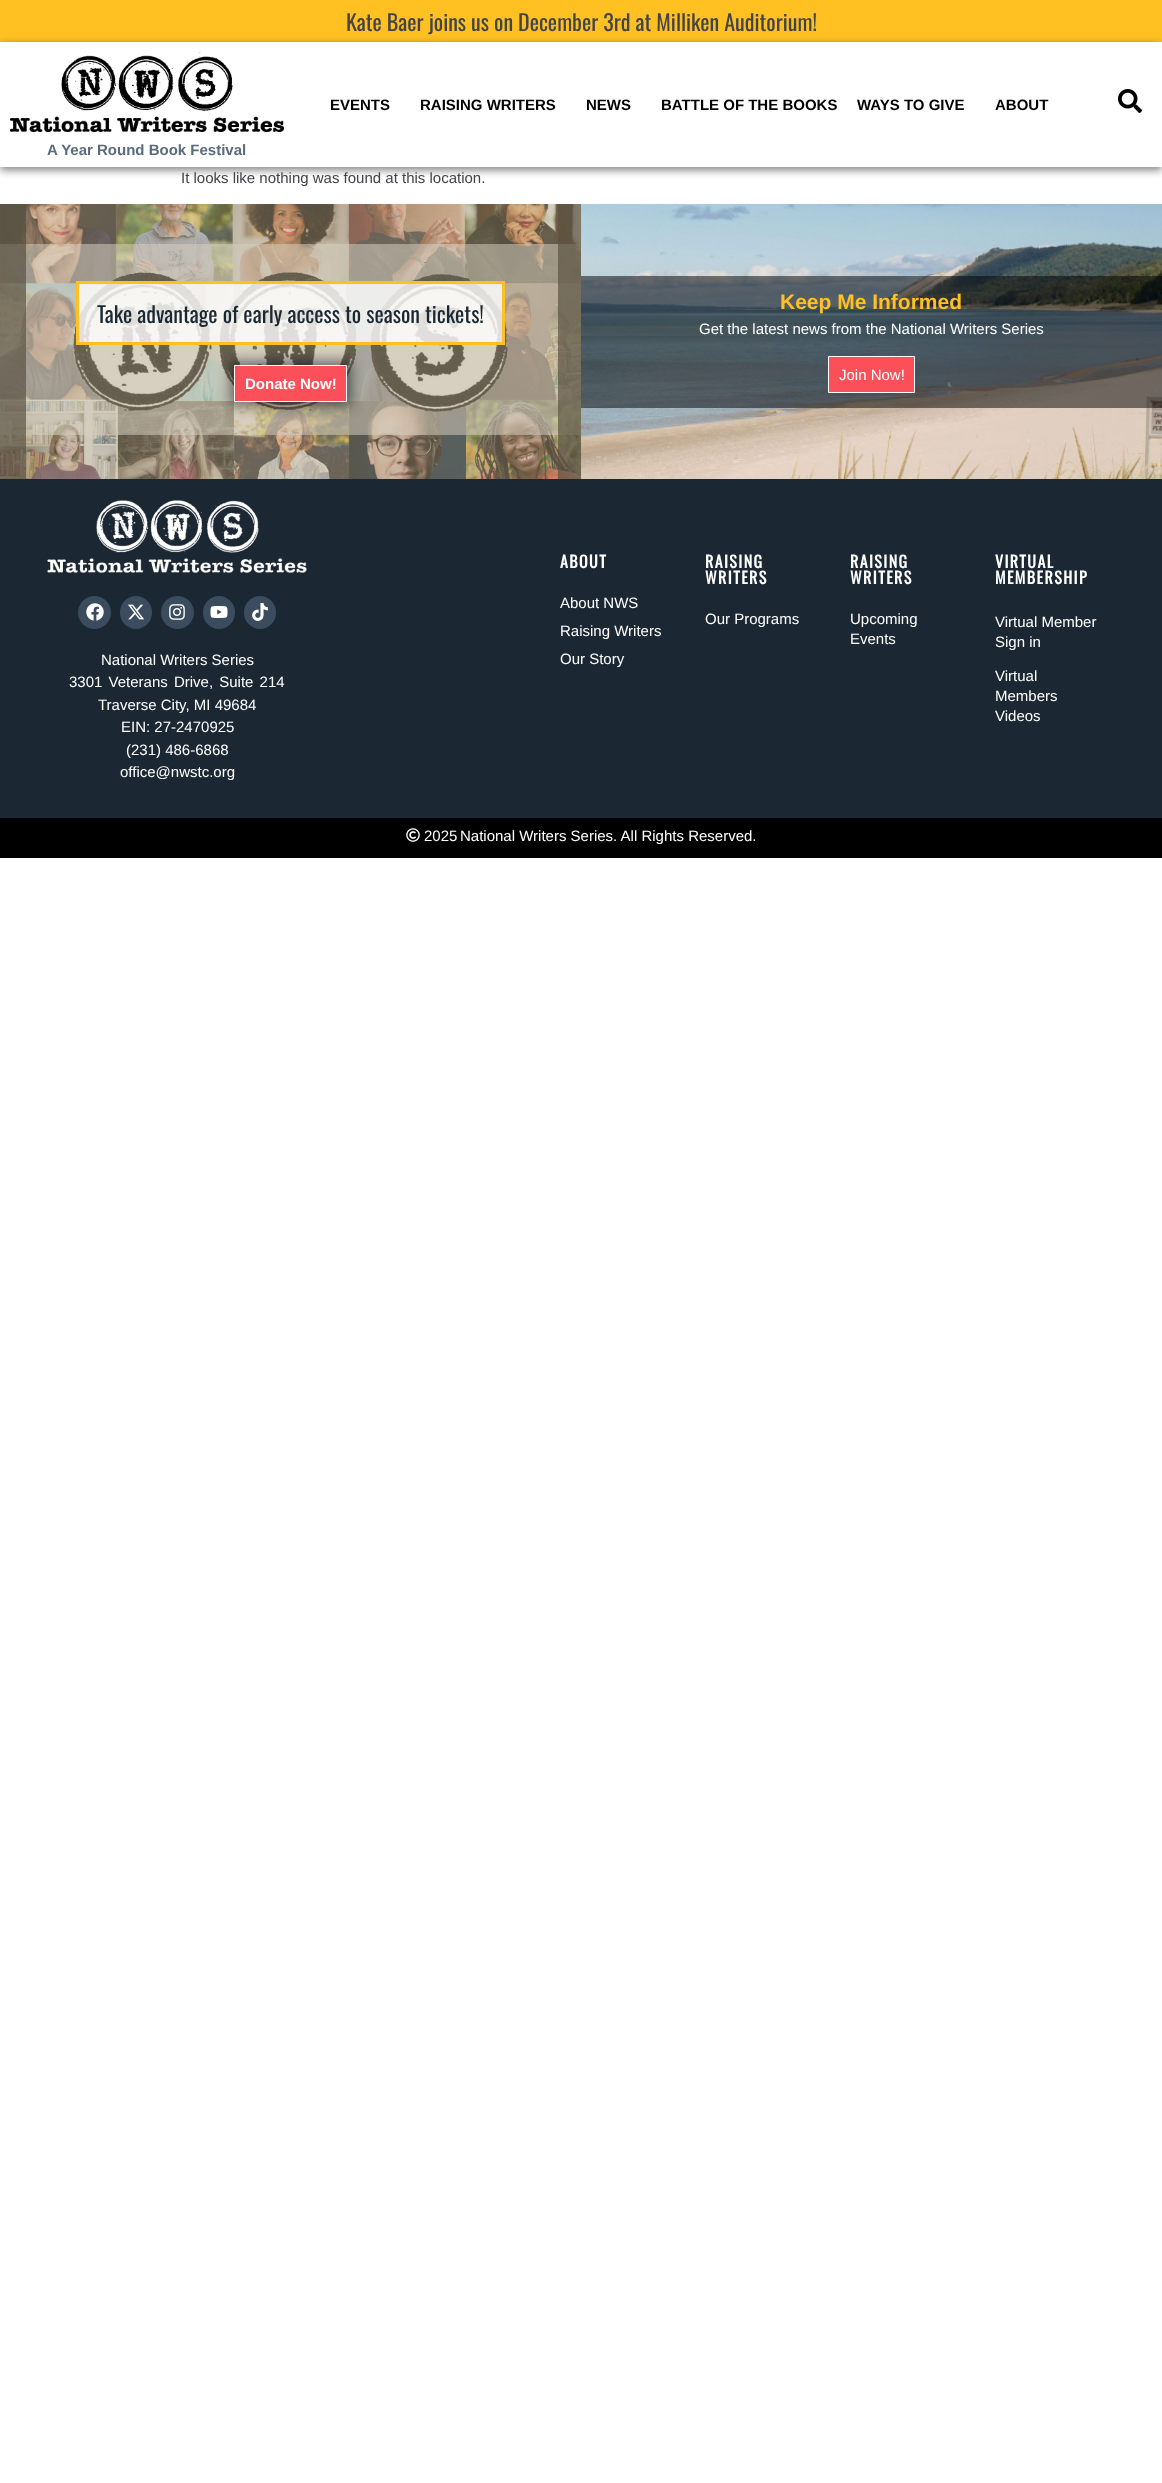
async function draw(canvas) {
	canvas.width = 1162;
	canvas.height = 2483;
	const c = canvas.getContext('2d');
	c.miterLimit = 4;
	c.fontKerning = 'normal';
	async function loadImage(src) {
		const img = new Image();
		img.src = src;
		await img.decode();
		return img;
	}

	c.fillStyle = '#fff';
	c.fillRect(0, 0, 1162, 2483);
	c.fillStyle = '#ffc022';
	c.fillRect(0, 0, 1162, 42);
	c.font = '22px Oswald';
	c.fillStyle = '#43434a';
	c.fillText('Kate Baer joins us on December 3rd at Milliken Auditorium!', 346, 31);
	c.save();
	c.beginPath();
	c.moveTo(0, 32);
	c.lineTo(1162, 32);
	c.lineTo(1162, 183);
	c.lineTo(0, 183);
	c.closePath();
	c.moveTo(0, 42);
	c.lineTo(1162, 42);
	c.lineTo(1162, 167);
	c.lineTo(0, 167);
	c.closePath();
	c.clip('evenodd');
	c.fillStyle = '#00000080';
	c.filter = 'blur(4px)';
	c.beginPath();
	c.rect(0, 45, 1162, 125);
	c.fill();
	c.filter = 'none';
	c.restore();
	c.font = 'bold 15px Liberation Sans';
	c.fillStyle = '#000';
	for (const [text, x, y] of [
		['EVENTS', 330, 110],
		['RAISING WRITERS', 420, 110],
		['NEWS', 586, 110],
		['BATTLE OF THE BOOKS', 661, 110],
		['WAYS TO GIVE', 857, 110],
		['ABOUT', 995, 110],
	]) {
		c.fillText(text, x, y);
	}
	c.drawImage(await loadImage('img1.png'), 1118, 89, 24, 24);
	c.drawImage(await loadImage('img2.png'), 10, 52, 274, 80);
	c.fillStyle = '#596b7c';
	c.fillText('A Year Round Book Festival', 47, 155);
	c.font = '15px Liberation Sans';
	c.fillStyle = '#43434a';
	c.fillText('It looks like nothing was found at this location.', 181, 183);
	c.drawImage(await loadImage('img3.png'), 0, 204, 581, 275);
	c.fillStyle = '#ffffffcc';
	c.beginPath();
	c.rect(77.5, 282.5, 426, 61);
	c.fill();
	c.strokeStyle = '#ffc022';
	c.lineWidth = 3;
	c.stroke();
	c.font = '22px Oswald';
	c.fillStyle = '#1b2732';
	c.fillText('Take advantage of early access to season tickets!', 97, 323);
	c.fillStyle = '#00000080';
	c.filter = 'blur(6.5px)';
	c.beginPath();
	c.rect(230, 361, 121, 45);
	c.fill();
	c.filter = 'none';
	c.fillStyle = '#fb5059';
	c.beginPath();
	c.rect(234.5, 365.5, 112, 36);
	c.fill();
	c.strokeStyle = '#fff';
	c.lineWidth = 1;
	c.stroke();
	c.font = 'bold 15px Liberation Sans';
	c.fillStyle = '#fff';
	c.fillText('Donate Now!', 245, 389);
	c.drawImage(await loadImage('img4.png'), 581, 204, 581, 275);
	c.fillStyle = '#00000080';
	c.fillRect(581, 276, 581, 132);
	c.font = 'bold 21px Liberation Sans';
	c.fillStyle = '#ffc022';
	c.fillText('Keep Me Informed', 780, 309);
	c.font = '15px Liberation Sans';
	c.fillStyle = '#fff';
	c.fillText('Get the latest news from the National Writers Series', 699, 334);
	c.fillStyle = '#fb5059';
	c.beginPath();
	c.rect(828.5, 356.5, 86, 36);
	c.fill();
	c.stroke();
	c.fillStyle = '#fff';
	c.fillText('Join Now!', 839, 380);
	c.fillStyle = '#1b2732';
	c.fillRect(0, 479, 1162, 339);
	c.drawImage(await loadImage('img5.png'), 47, 500, 260, 73);
	c.fillStyle = '#3a4c5e';
	c.beginPath();
	c.arc(94.5, 612.5, 16.5, 0, 2 * Math.PI);
	c.fill();
	c.drawImage(await loadImage('img6.png'), 86, 603, 18, 18);
	c.beginPath();
	c.roundRect(120, 596, 32, 33, 16);
	c.fill();
	c.drawImage(await loadImage('img7.png'), 128, 604, 16, 16);
	c.beginPath();
	c.arc(177.5, 612.5, 16.5, 0, 2 * Math.PI);
	c.fill();
	c.drawImage(await loadImage('img8.png'), 169, 604, 16, 16);
	c.beginPath();
	c.roundRect(203, 596, 32, 33, 16);
	c.fill();
	c.drawImage(await loadImage('img9.png'), 210, 606, 18, 12);
	c.beginPath();
	c.roundRect(244, 596, 32, 33, 16);
	c.fill();
	c.drawImage(await loadImage('img10.png'), 252, 603, 16, 18);
	c.fillStyle = '#fff';
	c.fillText('National Writers Series', 101, 665);
	c.wordSpacing = '2px';
	c.fillText('3301 Veterans Drive, Suite 214', 69, 687);
	c.wordSpacing = '0px';
	for (const [text, x, y] of [
		['Traverse City, MI 49684', 98, 710],
		['EIN: 27-2470925', 121, 732],
		['(231) 486-6868', 126, 755],
		['office@nwstc.org', 120, 777],
	]) {
		c.fillText(text, x, y);
	}
	c.letterSpacing = '1.4px';
	c.font = 'bold 16px Oswald';
	c.fillText('ABOUT', 560, 568);
	c.letterSpacing = '0px';
	c.font = '15px Liberation Sans';
	for (const [text, x, y] of [
		['About NWS', 560, 608],
		['Raising Writers', 560, 636],
		['Our Story', 560, 664],
	]) {
		c.fillText(text, x, y);
	}
	c.letterSpacing = '1.4px';
	c.font = 'bold 16px Oswald';
	c.fillText('RAISING', 705, 568);
	c.fillText('WRITERS', 705, 584);
	c.letterSpacing = '0px';
	c.font = '15px Liberation Sans';
	c.fillText('Our Programs', 705, 624);
	c.letterSpacing = '1.4px';
	c.font = 'bold 16px Oswald';
	c.fillText('RAISING', 850, 568);
	c.fillText('WRITERS', 850, 584);
	c.letterSpacing = '0px';
	c.font = '15px Liberation Sans';
	c.fillText('Upcoming', 850, 624);
	c.fillText('Events', 850, 644);
	c.letterSpacing = '1.4px';
	c.font = 'bold 16px Oswald';
	c.fillText('VIRTUAL', 995, 568);
	c.fillText('MEMBERSHIP', 995, 584);
	c.letterSpacing = '0px';
	c.font = '15px Liberation Sans';
	for (const [text, x, y] of [
		['Virtual Member', 995, 627],
		['Sign in', 995, 647],
		['Virtual', 995, 681],
		['Members', 995, 701],
		['Videos', 995, 721],
	]) {
		c.fillText(text, x, y);
	}
	c.fillStyle = '#000';
	c.fillRect(0, 818, 1162, 40);
	c.drawImage(await loadImage('img11.png'), 406, 828, 14, 14);
	c.fillStyle = '#fff';
	c.fillText('2025', 424, 841);
	c.fillText('National Writers Series. All Rights Reserved.', 460, 841);
}

draw(document.querySelector('canvas'));
